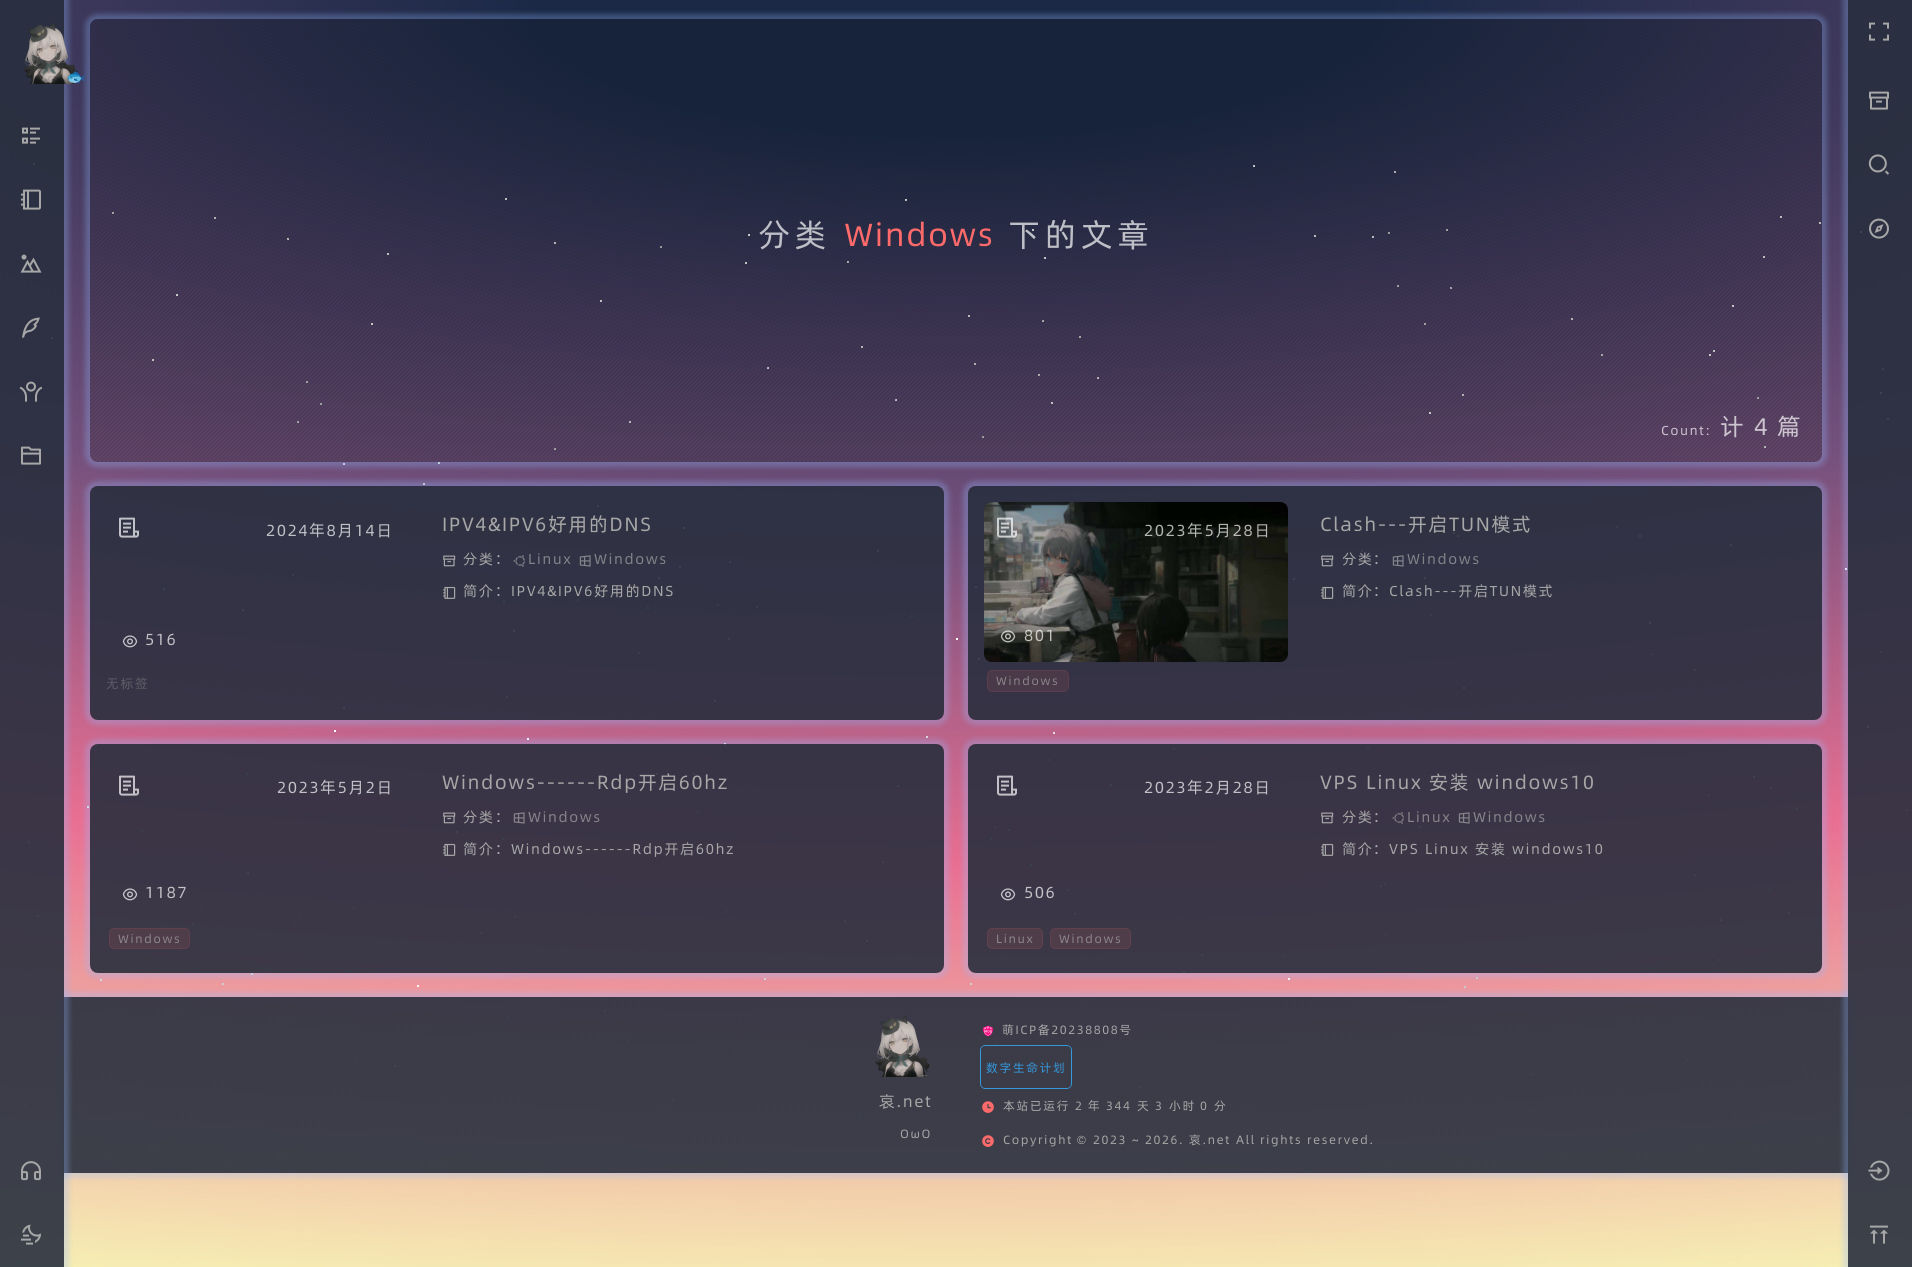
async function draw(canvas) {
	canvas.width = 1912;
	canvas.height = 1267;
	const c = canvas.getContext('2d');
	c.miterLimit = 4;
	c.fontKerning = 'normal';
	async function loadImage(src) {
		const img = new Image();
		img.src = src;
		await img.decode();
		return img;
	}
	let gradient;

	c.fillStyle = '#fff';
	c.fillRect(0, 0, 1912, 1267);
	gradient = c.createRadialGradient(956, 0, 0, 956, 0, 4206);
	gradient.addColorStop(0.1, '#1b2947');
	gradient.addColorStop(0.4, '#75517d');
	gradient.addColorStop(0.65, '#e96f92');
	gradient.addColorStop(1, '#f7f7b6');
	c.fillStyle = gradient;
	c.beginPath();
	c.rect(0, 0, 1912, 1267);
	c.save();
	c.clip();
	c.scale(1, 1330 / 4206);
	c.fillRect(0, 0, 1912, 4007);
	c.restore();
	gradient = c.createRadialGradient(956, 0, 0, 956, 0, 4206);
	gradient.addColorStop(0.1, '#272e3f');
	gradient.addColorStop(0.4, '#303244');
	gradient.addColorStop(0.65, '#3b3546');
	gradient.addColorStop(1, '#3d434a');
	c.fillStyle = gradient;
	c.beginPath();
	c.rect(64, 997, 1784, 176);
	c.save();
	c.clip();
	c.scale(1, 1330 / 4206);
	c.fillRect(0, 0, 1912, 4007);
	c.restore();
	for (const [x, y, w, h, color] of [
		[214, 217, 2, 2, '#d9d9d9'],
		[514, 916, 2, 2, '#ededed'],
		[1571, 318, 2, 2, '#e8e8e8'],
		[1253, 165, 2, 2, '#f0f0f0'],
		[1588, 1073, 2, 2, '#393f4d'],
		[847, 261, 2, 2, '#d4d4d4'],
		[1694, 669, 2, 2, '#dbdbdb'],
		[597, 505, 2, 2, '#e0e0e0'],
		[24, 1105, 2, 2, '#ededed'],
		[129, 785, 2, 2, '#fcfcfc'],
		[1384, 883, 2, 2, '#d4d4d4'],
		[334, 730, 2, 2, '#fff'],
		[1704, 1028, 2, 2, '#373e4b'],
		[725, 911, 2, 2, '#dbdbdb'],
		[143, 1081, 2, 2, '#393f4d'],
		[724, 743, 2, 2, '#e3e3e3'],
		[1601, 354, 2, 2, '#cfcfcf'],
		[1110, 784, 2, 2, '#ebebeb'],
		[1183, 971, 2, 2, '#e8e8e8'],
		[567, 970, 2, 2, '#c4c4c4'],
		[438, 462, 2, 2, '#cfcfcf'],
		[323, 1072, 2, 2, '#383e4c'],
		[1066, 971, 2, 2, '#c2c2c2'],
		[1357, 586, 2, 2, '#cfcfcf'],
		[1639, 535, 2, 2, '#fff'],
		[1788, 912, 2, 2, '#ebebeb'],
		[320, 403, 2, 2, '#c2c2c2'],
		[1507, 857, 2, 2, '#e0e0e0'],
		[1686, 1059, 2, 2, '#3b414f'],
		[693, 773, 2, 2, '#d4d4d4'],
		[1079, 336, 2, 2, '#c9c9c9'],
		[1051, 402, 2, 2, '#fafafa'],
		[242, 609, 2, 2, '#ebebeb'],
		[1882, 368, 2, 2, '#d1d1d1'],
		[1616, 526, 2, 2, '#c4c4c4'],
		[1288, 978, 2, 2, '#fafafa'],
		[121, 1009, 2, 2, '#383e4c'],
		[1757, 397, 2, 2, '#c9c9c9'],
		[387, 253, 2, 2, '#f0f0f0'],
		[51, 337, 2, 2, '#d4d4d4'],
		[679, 566, 2, 2, '#e0e0e0'],
		[152, 359, 2, 2, '#ebebeb'],
		[1732, 305, 2, 2, '#fff'],
		[1038, 374, 2, 2, '#d6d6d6'],
		[1424, 577, 2, 2, '#f0f0f0'],
		[926, 736, 2, 2, '#d9d9d9'],
		[656, 773, 2, 2, '#ededed'],
		[1374, 846, 2, 2, '#f2f2f2'],
		[577, 599, 2, 2, '#c4c4c4'],
		[604, 1010, 2, 2, '#3d4351'],
		[1385, 934, 2, 2, '#ccc'],
		[756, 606, 2, 2, '#c7c7c7'],
		[1361, 550, 2, 2, '#c4c4c4'],
		[628, 1040, 2, 2, '#3b414f'],
		[748, 234, 2, 2, '#fff'],
		[1049, 759, 2, 2, '#d6d6d6'],
		[298, 913, 2, 2, '#ccc'],
		[287, 238, 2, 2, '#e6e6e6'],
		[222, 983, 2, 2, '#cfcfcf'],
		[647, 607, 2, 2, '#d1d1d1'],
		[297, 421, 2, 2, '#ccc'],
		[1807, 759, 2, 2, '#cfcfcf'],
		[1030, 864, 2, 2, '#d6d6d6'],
		[1462, 394, 2, 2, '#e0e0e0'],
		[1887, 418, 2, 2, '#fcfcfc'],
		[1718, 959, 2, 2, '#e3e3e3'],
		[1397, 285, 2, 2, '#c7c7c7'],
		[638, 652, 2, 2, '#ccc'],
		[1032, 229, 2, 2, '#fff'],
		[882, 861, 2, 2, '#ebebeb'],
		[1372, 236, 2, 2, '#ebebeb'],
		[87, 806, 2, 2, '#e3e3e3'],
		[1880, 651, 2, 2, '#c7c7c7'],
		[764, 978, 2, 2, '#d6d6d6'],
		[956, 638, 2, 2, '#fff'],
		[1424, 323, 2, 2, '#c4c4c4'],
		[1293, 578, 2, 2, '#fff'],
		[844, 920, 2, 2, '#e6e6e6'],
		[672, 1099, 2, 2, '#3b424f'],
		[82, 1103, 2, 2, '#3c424f'],
		[728, 638, 2, 2, '#dedede'],
		[1768, 889, 2, 2, '#c9c9c9'],
		[584, 1058, 2, 2, '#373e4b'],
		[1796, 808, 2, 2, '#d9d9d9'],
		[982, 436, 2, 2, '#c4c4c4'],
		[1585, 773, 2, 2, '#c9c9c9'],
		[183, 1004, 2, 2, '#373e4b'],
		[1430, 614, 2, 2, '#c2c2c2'],
		[352, 907, 2, 2, '#c9c9c9'],
		[1314, 235, 2, 2, '#f7f7f7'],
		[1453, 532, 2, 2, '#cfcfcf'],
		[990, 838, 2, 2, '#d4d4d4'],
		[714, 700, 2, 2, '#e3e3e3'],
		[1388, 232, 2, 2, '#c2c2c2'],
		[293, 924, 2, 2, '#ccc'],
		[897, 785, 2, 2, '#d9d9d9'],
		[527, 738, 2, 2, '#fafafa'],
		[417, 985, 2, 2, '#f7f7f7'],
		[1730, 544, 2, 2, '#ededed'],
		[1457, 535, 2, 2, '#ebebeb'],
		[1173, 748, 2, 2, '#ccc'],
		[1860, 231, 2, 2, '#f2f2f2'],
		[975, 586, 2, 2, '#ebebeb'],
		[1694, 874, 2, 2, '#dbdbdb'],
		[179, 945, 2, 2, '#cfcfcf'],
		[1753, 776, 2, 2, '#f7f7f7'],
		[33, 163, 2, 2, '#c9c9c9'],
		[1097, 377, 2, 2, '#e3e3e3'],
		[1446, 229, 2, 2, '#c2c2c2'],
		[1530, 1110, 2, 2, '#3b414f'],
		[1464, 986, 2, 2, '#c9c9c9'],
		[246, 773, 2, 2, '#ccc'],
		[1085, 1001, 2, 2, '#393f4d'],
		[503, 601, 2, 2, '#dbdbdb'],
		[717, 604, 2, 2, '#c2c2c2'],
		[1764, 446, 2, 2, '#e6e6e6'],
		[1713, 350, 2, 2, '#ebebeb'],
		[176, 294, 2, 2, '#fff'],
		[1649, 622, 2, 2, '#fcfcfc'],
		[1008, 829, 2, 2, '#d6d6d6'],
		[456, 831, 2, 2, '#f5f5f5'],
		[745, 262, 2, 2, '#ededed'],
		[2, 919, 2, 2, '#c9c9c9'],
		[306, 381, 2, 2, '#c4c4c4'],
		[554, 242, 2, 2, '#e0e0e0'],
		[866, 940, 2, 2, '#f7f7f7'],
		[905, 199, 2, 2, '#fafafa'],
		[201, 908, 2, 2, '#d1d1d1'],
		[970, 983, 2, 2, '#cfcfcf'],
		[505, 198, 2, 2, '#ebebeb'],
		[1532, 1073, 2, 2, '#3d4451'],
		[877, 550, 2, 2, '#cfcfcf'],
		[1845, 568, 2, 2, '#f7f7f7'],
		[112, 212, 2, 2, '#c9c9c9'],
		[658, 577, 2, 2, '#dbdbdb'],
		[251, 973, 2, 2, '#dbdbdb'],
		[506, 696, 2, 2, '#cfcfcf'],
		[861, 346, 2, 2, '#dbdbdb'],
		[394, 1065, 2, 2, '#3d4351'],
		[554, 448, 2, 2, '#c9c9c9'],
		[292, 574, 2, 2, '#c2c2c2'],
		[1813, 1069, 2, 2, '#39404d'],
		[28, 841, 2, 2, '#cfcfcf'],
		[401, 1035, 2, 2, '#383e4b'],
		[507, 1017, 2, 2, '#3a414e'],
		[1419, 826, 2, 2, '#e6e6e6'],
		[1476, 977, 2, 2, '#ccc'],
		[974, 363, 2, 2, '#e3e3e3'],
		[1906, 809, 2, 2, '#d9d9d9'],
		[739, 1021, 2, 2, '#39404d'],
		[1044, 257, 2, 2, '#fff'],
		[1380, 885, 2, 2, '#ebebeb'],
		[1770, 787, 2, 2, '#ebebeb'],
		[1720, 919, 2, 2, '#ededed'],
		[696, 811, 2, 2, '#c4c4c4'],
		[660, 246, 2, 2, '#c2c2c2'],
		[1201, 954, 2, 2, '#f7f7f7'],
		[1570, 769, 2, 2, '#c7c7c7'],
		[513, 630, 2, 2, '#f7f7f7'],
		[911, 615, 2, 2, '#c7c7c7'],
		[1074, 913, 2, 2, '#e6e6e6'],
		[354, 1056, 2, 2, '#3b414f'],
		[729, 561, 2, 2, '#ccc'],
		[554, 1052, 2, 2, '#373e4b'],
		[192, 923, 2, 2, '#d1d1d1'],
		[218, 915, 2, 2, '#c4c4c4'],
		[859, 1114, 2, 2, '#3a404e'],
		[343, 707, 2, 2, '#fff'],
		[735, 1048, 2, 2, '#3a404e'],
		[1880, 392, 2, 2, '#f2f2f2'],
		[502, 838, 2, 2, '#cfcfcf'],
		[1867, 726, 2, 2, '#f7f7f7'],
		[683, 527, 2, 2, '#f5f5f5'],
		[968, 315, 2, 2, '#e6e6e6'],
		[1112, 1045, 2, 2, '#39404d'],
		[978, 658, 2, 2, '#e8e8e8'],
		[1067, 889, 2, 2, '#d9d9d9'],
		[371, 323, 2, 2, '#fafafa'],
		[767, 367, 2, 2, '#ebebeb'],
		[1819, 222, 2, 2, '#f2f2f2'],
		[141, 830, 2, 2, '#d1d1d1'],
		[1463, 687, 2, 2, '#fff'],
		[1450, 287, 2, 2, '#d4d4d4'],
		[996, 1044, 2, 1, '#3d4451'],
		[1429, 412, 2, 2, '#fff'],
		[196, 967, 2, 2, '#c7c7c7'],
		[100, 979, 2, 2, '#dbdbdb'],
		[895, 399, 2, 2, '#e8e8e8'],
		[270, 969, 2, 2, '#c4c4c4'],
		[163, 588, 2, 2, '#e6e6e6'],
		[629, 421, 2, 2, '#e6e6e6'],
		[1709, 354, 2, 2, '#f7f7f7'],
		[423, 483, 2, 2, '#c9c9c9'],
		[1042, 320, 2, 2, '#d1d1d1'],
		[600, 300, 2, 2, '#f2f2f2'],
		[247, 872, 2, 2, '#fcfcfc'],
		[1708, 794, 2, 2, '#c7c7c7'],
		[37, 915, 2, 2, '#e8e8e8'],
		[994, 826, 2, 2, '#d1d1d1'],
		[1651, 653, 2, 2, '#c9c9c9'],
		[1763, 256, 2, 2, '#e6e6e6'],
		[1513, 853, 2, 2, '#dbdbdb'],
		[1804, 1066, 2, 2, '#3c4250'],
		[1053, 732, 2, 2, '#dedede'],
		[480, 932, 2, 2, '#ededed'],
		[1139, 1086, 2, 2, '#3d4451'],
		[1394, 171, 2, 2, '#dedede'],
		[1231, 1031, 2, 2, '#3c4350'],
		[1724, 1040, 2, 2, '#383e4b'],
		[343, 463, 2, 2, '#d1d1d1'],
		[1367, 748, 2, 2, '#d1d1d1'],
		[1283, 955, 2, 2, '#cfcfcf'],
		[348, 970, 2, 2, '#c2c2c2'],
		[1780, 216, 2, 2, '#ebebeb'],
	]) {
		c.fillStyle = color;
		c.fillRect(x, y, w, h);
	}
	c.save();
	c.beginPath();
	c.moveTo(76, 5);
	c.lineTo(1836, 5);
	c.lineTo(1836, 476);
	c.lineTo(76, 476);
	c.closePath();
	c.moveTo(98, 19);
	c.lineTo(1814, 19);
	c.bezierCurveTo(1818.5, 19, 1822, 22.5, 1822, 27);
	c.lineTo(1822, 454);
	c.bezierCurveTo(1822, 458.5, 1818.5, 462, 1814, 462);
	c.lineTo(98, 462);
	c.bezierCurveTo(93.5, 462, 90, 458.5, 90, 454);
	c.lineTo(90, 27);
	c.bezierCurveTo(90, 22.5, 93.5, 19, 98, 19);
	c.closePath();
	c.clip('evenodd');
	c.fillStyle = '#93baff4d';
	c.filter = 'blur(2.5px)';
	c.beginPath();
	c.roundRect(85, 14, 1742, 453, 13);
	c.fill();
	c.filter = 'none';
	c.restore();
	c.drawImage(await loadImage('img1.png'), 90, 19, 1732, 443);
	c.drawImage(await loadImage('img2.png'), 759, 220, 66, 30);
	c.drawImage(await loadImage('img3.png'), 845, 221, 147, 26);
	c.drawImage(await loadImage('img4.png'), 1010, 219, 138, 31);
	c.drawImage(await loadImage('img5.png'), 1661, 425, 48, 11);
	c.drawImage(await loadImage('img6.png'), 1721, 415, 22, 23);
	c.drawImage(await loadImage('img7.png'), 1754, 418, 13, 17);
	c.drawImage(await loadImage('img8.png'), 1777, 415, 23, 23);
	c.save();
	c.beginPath();
	c.rect(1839, 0, 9, 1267);
	c.clip();
	c.fillStyle = '#93baff4d';
	c.filter = 'blur(2.5px)';
	c.beginPath();
	c.rect(1843, -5, 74, 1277);
	c.fill();
	c.filter = 'none';
	c.restore();
	c.save();
	c.beginPath();
	c.moveTo(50, 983);
	c.lineTo(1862, 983);
	c.lineTo(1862, 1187);
	c.lineTo(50, 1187);
	c.closePath();
	c.moveTo(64, 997);
	c.lineTo(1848, 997);
	c.lineTo(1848, 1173);
	c.lineTo(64, 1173);
	c.closePath();
	c.clip('evenodd');
	c.fillStyle = '#93baff4d';
	c.filter = 'blur(2.5px)';
	c.beginPath();
	c.rect(59, 992, 1794, 186);
	c.fill();
	c.filter = 'none';
	c.restore();
	c.fillStyle = '#282f3ee6';
	c.fillRect(1848, 0, 64, 1267);
	c.drawImage(await loadImage('img9.png'), 1869, 22, 20, 19);
	c.drawImage(await loadImage('img10.png'), 1869, 91, 20, 19);
	c.drawImage(await loadImage('img11.png'), 1868, 154, 21, 21);
	c.drawImage(await loadImage('img12.png'), 1869, 218, 20, 21);
	c.drawImage(await loadImage('img13.png'), 1868, 1160, 22, 21);
	c.drawImage(await loadImage('img14.png'), 1870, 1225, 18, 19);
	c.save();
	c.beginPath();
	c.rect(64, 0, 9, 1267);
	c.clip();
	c.fillStyle = '#93baff4d';
	c.filter = 'blur(2.5px)';
	c.beginPath();
	c.rect(-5, -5, 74, 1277);
	c.fill();
	c.filter = 'none';
	c.restore();
	c.fillRect(0, 0, 64, 1267);
	c.drawImage(await loadImage('img15.png'), 23, 22, 55, 62);
	c.letterSpacing = '2px';
	c.font = '16px Noto Color Emoji';
	c.fillStyle = '#a7a7a7';
	c.fillText('🐟', 66, 82);
	c.drawImage(await loadImage('img16.png'), 22, 127, 18, 17);
	c.drawImage(await loadImage('img17.png'), 21, 189, 20, 21);
	c.drawImage(await loadImage('img18.png'), 20, 254, 22, 19);
	c.drawImage(await loadImage('img19.png'), 22, 317, 18, 21);
	c.drawImage(await loadImage('img20.png'), 19, 381, 24, 21);
	c.drawImage(await loadImage('img21.png'), 21, 446, 20, 19);
	c.drawImage(await loadImage('img22.png'), 21, 1161, 20, 20);
	c.drawImage(await loadImage('img23.png'), 21, 1224, 20, 21);
	c.save();
	c.beginPath();
	c.moveTo(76, 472);
	c.lineTo(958, 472);
	c.lineTo(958, 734);
	c.lineTo(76, 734);
	c.closePath();
	c.moveTo(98, 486);
	c.lineTo(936, 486);
	c.bezierCurveTo(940.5, 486, 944, 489.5, 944, 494);
	c.lineTo(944, 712);
	c.bezierCurveTo(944, 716.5, 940.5, 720, 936, 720);
	c.lineTo(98, 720);
	c.bezierCurveTo(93.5, 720, 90, 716.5, 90, 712);
	c.lineTo(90, 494);
	c.bezierCurveTo(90, 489.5, 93.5, 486, 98, 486);
	c.closePath();
	c.clip('evenodd');
	c.fillStyle = '#93baff4d';
	c.filter = 'blur(2.5px)';
	c.beginPath();
	c.roundRect(85, 481, 864, 244, 13);
	c.fill();
	c.filter = 'none';
	c.restore();
	c.fillStyle = '#282f3ee6';
	c.beginPath();
	c.roundRect(90, 486, 854, 234, 8);
	c.fill();
	c.drawImage(await loadImage('img24.png'), 119, 517, 20, 21);
	c.drawImage(await loadImage('img25.png'), 266, 522, 124, 16);
	c.drawImage(await loadImage('img26.png'), 122, 635, 16, 13);
	c.drawImage(await loadImage('img27.png'), 146, 633, 29, 13);
	c.drawImage(await loadImage('img28.png'), 106, 677, 41, 13);
	c.drawImage(await loadImage('img29.png'), 443, 515, 207, 18);
	c.drawImage(await loadImage('img30.png'), 443, 555, 13, 12);
	c.drawImage(await loadImage('img31.png'), 463, 552, 30, 14);
	c.font = '14px Noto Sans CJK SC';
	c.fillStyle = '#a7a7a7';
	c.fillText('：', 495, 564);
	c.drawImage(await loadImage('img32.png'), 513, 555, 12, 12);
	c.drawImage(await loadImage('img33.png'), 529, 553, 42, 12);
	c.drawImage(await loadImage('img34.png'), 579, 555, 12, 12);
	c.drawImage(await loadImage('img35.png'), 594, 553, 72, 12);
	c.drawImage(await loadImage('img36.png'), 443, 586, 13, 13);
	c.drawImage(await loadImage('img37.png'), 463, 584, 30, 14);
	c.fillText('：', 495, 596);
	c.drawImage(await loadImage('img38.png'), 512, 584, 161, 14);
	c.save();
	c.beginPath();
	c.moveTo(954, 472);
	c.lineTo(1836, 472);
	c.lineTo(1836, 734);
	c.lineTo(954, 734);
	c.closePath();
	c.moveTo(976, 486);
	c.lineTo(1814, 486);
	c.bezierCurveTo(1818.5, 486, 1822, 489.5, 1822, 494);
	c.lineTo(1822, 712);
	c.bezierCurveTo(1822, 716.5, 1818.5, 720, 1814, 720);
	c.lineTo(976, 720);
	c.bezierCurveTo(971.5, 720, 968, 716.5, 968, 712);
	c.lineTo(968, 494);
	c.bezierCurveTo(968, 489.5, 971.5, 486, 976, 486);
	c.closePath();
	c.clip('evenodd');
	c.fillStyle = '#93baff4d';
	c.filter = 'blur(2.5px)';
	c.beginPath();
	c.roundRect(963, 481, 864, 244, 13);
	c.fill();
	c.filter = 'none';
	c.restore();
	c.fillStyle = '#282f3ee6';
	c.beginPath();
	c.roundRect(968, 486, 854, 234, 8);
	c.fill();
	c.drawImage(await loadImage('img39.png'), 984, 502, 304, 160);
	c.drawImage(await loadImage('img40.png'), 997, 517, 20, 21);
	c.drawImage(await loadImage('img41.png'), 1144, 522, 124, 16);
	c.drawImage(await loadImage('img42.png'), 1000, 630, 16, 13);
	c.drawImage(await loadImage('img43.png'), 1024, 629, 28, 13);
	c.fillStyle = '#493949';
	c.beginPath();
	c.roundRect(987, 670, 82, 22, 5);
	c.fill();
	c.beginPath();
	c.roundRect(987.5, 670.5, 81, 21, 4.5);
	c.strokeStyle = '#ff6a6a1a';
	c.stroke();
	c.drawImage(await loadImage('img44.png'), 996, 675, 61, 11);
	c.drawImage(await loadImage('img45.png'), 1321, 515, 209, 19);
	c.drawImage(await loadImage('img46.png'), 1321, 555, 13, 12);
	c.drawImage(await loadImage('img47.png'), 1342, 552, 30, 14);
	c.fillStyle = '#a7a7a7';
	c.fillText('：', 1373, 564);
	c.drawImage(await loadImage('img48.png'), 1392, 555, 12, 12);
	c.drawImage(await loadImage('img49.png'), 1407, 553, 72, 12);
	c.drawImage(await loadImage('img50.png'), 1321, 586, 13, 13);
	c.drawImage(await loadImage('img51.png'), 1342, 584, 30, 14);
	c.fillText('：', 1373, 596);
	c.drawImage(await loadImage('img52.png'), 1390, 584, 162, 14);
	c.save();
	c.beginPath();
	c.moveTo(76, 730);
	c.lineTo(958, 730);
	c.lineTo(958, 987);
	c.lineTo(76, 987);
	c.closePath();
	c.moveTo(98, 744);
	c.lineTo(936, 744);
	c.bezierCurveTo(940.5, 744, 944, 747.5, 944, 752);
	c.lineTo(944, 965);
	c.bezierCurveTo(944, 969.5, 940.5, 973, 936, 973);
	c.lineTo(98, 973);
	c.bezierCurveTo(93.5, 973, 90, 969.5, 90, 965);
	c.lineTo(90, 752);
	c.bezierCurveTo(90, 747.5, 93.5, 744, 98, 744);
	c.closePath();
	c.clip('evenodd');
	c.fillStyle = '#93baff4d';
	c.filter = 'blur(2.5px)';
	c.beginPath();
	c.roundRect(85, 739, 864, 239, 13);
	c.fill();
	c.filter = 'none';
	c.restore();
	c.fillStyle = '#282f3ee6';
	c.beginPath();
	c.roundRect(90, 744, 854, 229, 8);
	c.fill();
	c.drawImage(await loadImage('img53.png'), 119, 775, 20, 21);
	c.drawImage(await loadImage('img54.png'), 277, 779, 113, 16);
	c.drawImage(await loadImage('img55.png'), 122, 888, 16, 13);
	c.drawImage(await loadImage('img56.png'), 146, 886, 40, 13);
	c.fillStyle = '#ff6a6a1a';
	c.beginPath();
	c.roundRect(109, 928, 81, 21, 5);
	c.fill();
	c.beginPath();
	c.roundRect(109.5, 928.5, 80, 20, 4.5);
	c.stroke();
	c.drawImage(await loadImage('img57.png'), 118, 933, 61, 11);
	c.drawImage(await loadImage('img58.png'), 442, 773, 285, 20);
	c.drawImage(await loadImage('img59.png'), 443, 812, 13, 12);
	c.drawImage(await loadImage('img60.png'), 463, 810, 30, 14);
	c.fillStyle = '#a7a7a7';
	c.fillText('：', 495, 822);
	c.drawImage(await loadImage('img61.png'), 513, 812, 12, 12);
	c.drawImage(await loadImage('img62.png'), 528, 811, 72, 12);
	c.drawImage(await loadImage('img63.png'), 443, 843, 13, 13);
	c.drawImage(await loadImage('img64.png'), 463, 842, 30, 14);
	c.fillText('：', 495, 854);
	c.drawImage(await loadImage('img65.png'), 511, 842, 222, 15);
	c.save();
	c.beginPath();
	c.moveTo(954, 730);
	c.lineTo(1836, 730);
	c.lineTo(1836, 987);
	c.lineTo(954, 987);
	c.closePath();
	c.moveTo(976, 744);
	c.lineTo(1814, 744);
	c.bezierCurveTo(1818.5, 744, 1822, 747.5, 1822, 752);
	c.lineTo(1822, 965);
	c.bezierCurveTo(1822, 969.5, 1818.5, 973, 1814, 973);
	c.lineTo(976, 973);
	c.bezierCurveTo(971.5, 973, 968, 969.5, 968, 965);
	c.lineTo(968, 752);
	c.bezierCurveTo(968, 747.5, 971.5, 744, 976, 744);
	c.closePath();
	c.clip('evenodd');
	c.fillStyle = '#93baff4d';
	c.filter = 'blur(2.5px)';
	c.beginPath();
	c.roundRect(963, 739, 864, 239, 13);
	c.fill();
	c.filter = 'none';
	c.restore();
	c.fillStyle = '#282f3ee6';
	c.beginPath();
	c.roundRect(968, 744, 854, 229, 8);
	c.fill();
	c.drawImage(await loadImage('img66.png'), 997, 775, 20, 21);
	c.drawImage(await loadImage('img67.png'), 1144, 779, 124, 16);
	c.drawImage(await loadImage('img68.png'), 1000, 888, 16, 13);
	c.drawImage(await loadImage('img69.png'), 1025, 886, 29, 13);
	c.fillStyle = '#4f3d4a';
	c.beginPath();
	c.roundRect(987, 928, 56, 21, 5);
	c.fill();
	c.beginPath();
	c.roundRect(987.5, 928.5, 55, 20, 4.5);
	c.stroke();
	c.drawImage(await loadImage('img70.png'), 997, 934, 36, 10);
	c.beginPath();
	c.roundRect(1050, 928, 81, 21, 5);
	c.fill();
	c.beginPath();
	c.roundRect(1050.5, 928.5, 80, 20, 4.5);
	c.stroke();
	c.drawImage(await loadImage('img71.png'), 1059, 933, 61, 11);
	c.drawImage(await loadImage('img72.png'), 1320, 775, 37, 15);
	c.drawImage(await loadImage('img73.png'), 1367, 774, 54, 16);
	c.drawImage(await loadImage('img74.png'), 1429, 773, 39, 18);
	c.drawImage(await loadImage('img75.png'), 1477, 774, 116, 16);
	c.drawImage(await loadImage('img76.png'), 1321, 812, 13, 12);
	c.drawImage(await loadImage('img77.png'), 1342, 810, 30, 14);
	c.fillStyle = '#a7a7a7';
	c.fillText('：', 1373, 822);
	c.drawImage(await loadImage('img78.png'), 1392, 812, 12, 12);
	c.drawImage(await loadImage('img79.png'), 1408, 811, 42, 12);
	c.drawImage(await loadImage('img80.png'), 1458, 812, 12, 12);
	c.drawImage(await loadImage('img81.png'), 1473, 811, 72, 12);
	c.drawImage(await loadImage('img82.png'), 1321, 843, 13, 13);
	c.drawImage(await loadImage('img83.png'), 1342, 842, 30, 14);
	c.fillText('：', 1373, 854);
	c.drawImage(await loadImage('img84.png'), 1389, 843, 28, 12);
	c.drawImage(await loadImage('img85.png'), 1426, 843, 42, 12);
	c.drawImage(await loadImage('img86.png'), 1475, 842, 30, 14);
	c.drawImage(await loadImage('img87.png'), 1512, 843, 91, 12);
	c.drawImage(await loadImage('img88.png'), 875, 1015, 55, 62);
	c.drawImage(await loadImage('img89.png'), 879, 1094, 52, 15);
	c.drawImage(await loadImage('img90.png'), 900, 1129, 30, 10);
	c.drawImage(await loadImage('img91.png'), 982, 1025, 12, 12);
	c.drawImage(await loadImage('img92.png'), 1002, 1024, 129, 12);
	c.beginPath();
	c.roundRect(980.5, 1045.5, 91, 43, 4.5);
	c.strokeStyle = '#3498db';
	c.stroke();
	c.drawImage(await loadImage('img93.png'), 986, 1062, 78, 12);
	c.drawImage(await loadImage('img94.png'), 982, 1101, 12, 12);
	c.drawImage(await loadImage('img95.png'), 1003, 1100, 65, 12);
	c.drawImage(await loadImage('img96.png'), 1075, 1101, 7, 9);
	c.drawImage(await loadImage('img97.png'), 1088, 1100, 11, 11);
	c.drawImage(await loadImage('img98.png'), 1106, 1101, 24, 10);
	c.drawImage(await loadImage('img99.png'), 1137, 1101, 12, 11);
	c.drawImage(await loadImage('img100.png'), 1155, 1101, 6, 10);
	c.drawImage(await loadImage('img101.png'), 1169, 1100, 25, 11);
	c.drawImage(await loadImage('img102.png'), 1200, 1101, 7, 10);
	c.drawImage(await loadImage('img103.png'), 1214, 1100, 12, 12);
	c.drawImage(await loadImage('img104.png'), 982, 1135, 12, 12);
	c.drawImage(await loadImage('img105.png'), 1003, 1134, 68, 13);
	c.font = '12px Liberation Sans';
	c.fillText('©', 1077, 1144);
	c.drawImage(await loadImage('img106.png'), 1093, 1135, 32, 10);
	c.drawImage(await loadImage('img107.png'), 1132, 1139, 7, 3);
	c.drawImage(await loadImage('img108.png'), 1145, 1135, 37, 10);
	c.drawImage(await loadImage('img109.png'), 1189, 1134, 40, 12);
	c.drawImage(await loadImage('img110.png'), 1236, 1134, 18, 10);
	c.drawImage(await loadImage('img111.png'), 1261, 1134, 39, 13);
	c.drawImage(await loadImage('img112.png'), 1308, 1134, 64, 11);
}

draw(document.querySelector('canvas'));
